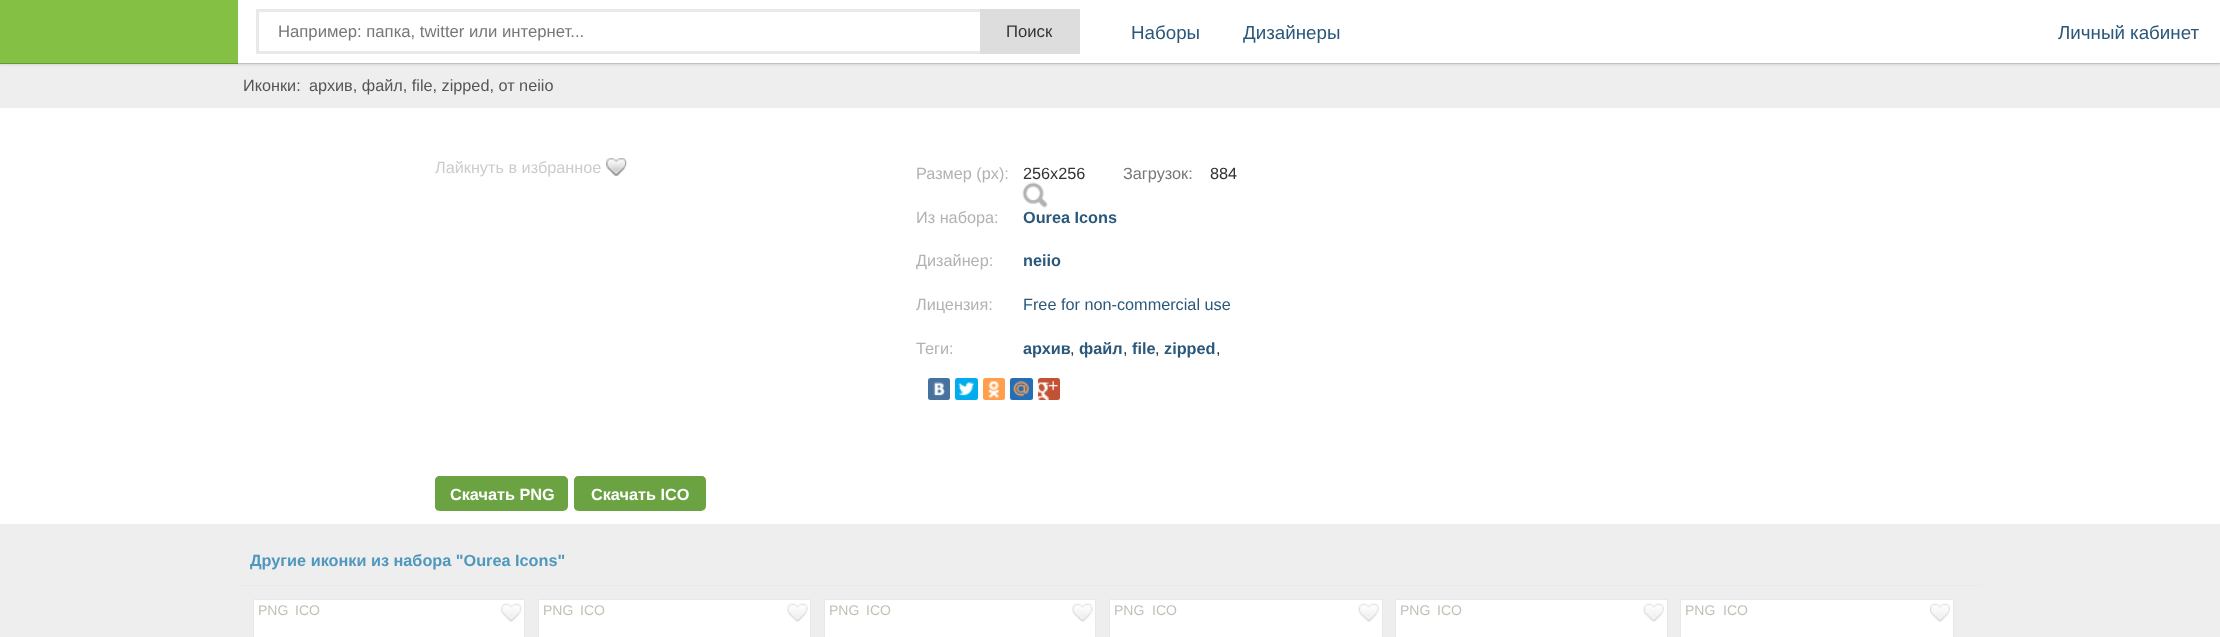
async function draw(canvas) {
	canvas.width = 2220;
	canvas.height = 637;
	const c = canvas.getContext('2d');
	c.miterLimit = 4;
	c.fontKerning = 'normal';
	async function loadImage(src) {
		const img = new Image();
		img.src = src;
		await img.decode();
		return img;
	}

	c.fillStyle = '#eee';
	c.fillRect(0, 0, 2220, 637);
	c.fillStyle = '#d6d6d6';
	c.fillRect(238, 63, 1982, 1);
	c.fillStyle = '#0000001a';
	c.filter = 'blur(1px)';
	c.beginPath();
	c.rect(0, 3, 2220, 62);
	c.fill();
	c.filter = 'none';
	for (const [x, y, w, h, color] of [
		[238, 0, 1982, 63, '#fff'],
		[0, 0, 238, 63, '#84c044'],
		[0, 63, 238, 1, '#669731'],
	]) {
		c.fillStyle = color;
		c.fillRect(x, y, w, h);
	}
	c.strokeStyle = '#e9e9e9';
	c.lineWidth = 3;
	c.strokeRect(257.5, 10.5, 784, 42);
	c.font = '16.7px Liberation Sans';
	c.fillStyle = '#777';
	c.fillText('Например: папка, twitter или интернет...', 278, 37);
	c.fillStyle = '#ddd';
	c.fillRect(980, 9, 100, 45);
	c.fillStyle = '#333';
	c.fillText('Поиск', 1006, 37);
	c.font = '18.75px Liberation Sans';
	c.fillStyle = '#2b587a';
	for (const [text, x, y] of [
		['Наборы', 1131, 39],
		['Дизайнеры', 1243, 39],
		['Личный кабинет', 2058, 39],
	]) {
		c.fillText(text, x, y);
	}
	c.font = '16.25px Liberation Sans';
	c.fillStyle = '#555';
	c.fillText('Иконки:', 243, 91);
	c.fillText('архив, файл, file, zipped, от neiio', 309, 91);
	c.fillStyle = '#fff';
	c.fillRect(0, 108, 2220, 416);
	c.drawImage(await loadImage('img1.png'), 606, 158, 21, 18);
	c.fillStyle = '#ccc';
	c.fillText('Лайкнуть в избранное', 435, 173);
	c.drawImage(await loadImage('img2.png'), 1022, 182, 26, 26);
	c.fillStyle = '#6ba342';
	c.beginPath();
	c.roundRect(435, 476, 133, 35, 5);
	c.fill();
	c.beginPath();
	c.moveTo(440, 476);
	c.lineTo(562, 476);
	c.bezierCurveTo(565, 476, 568, 478, 568, 481);
	c.lineTo(568, 506);
	c.bezierCurveTo(568, 509, 565, 511, 562, 511);
	c.lineTo(440, 511);
	c.bezierCurveTo(437, 511, 435, 509, 435, 506);
	c.lineTo(435, 481);
	c.bezierCurveTo(435, 478, 437, 476, 440, 476);
	c.closePath();
	c.moveTo(440, 478);
	c.lineTo(562, 478);
	c.bezierCurveTo(565, 478, 568, 479, 568, 481);
	c.lineTo(568, 506);
	c.bezierCurveTo(568, 509, 565, 511, 562, 511);
	c.lineTo(440, 511);
	c.bezierCurveTo(438, 511, 436, 509, 436, 506);
	c.lineTo(436, 481);
	c.bezierCurveTo(436, 479, 438, 478, 440, 478);
	c.closePath();
	c.fill('evenodd');
	c.font = 'bold 16.25px Liberation Sans';
	c.fillStyle = '#fff';
	c.fillText('Скачать PNG', 450, 500);
	c.fillStyle = '#6ba342';
	c.beginPath();
	c.roundRect(574, 476, 132, 35, 5);
	c.fill();
	c.beginPath();
	c.moveTo(579, 476);
	c.lineTo(701, 476);
	c.bezierCurveTo(704, 476, 706, 478, 706, 481);
	c.lineTo(706, 506);
	c.bezierCurveTo(706, 509, 704, 511, 701, 511);
	c.lineTo(579, 511);
	c.bezierCurveTo(576, 511, 574, 509, 574, 506);
	c.lineTo(574, 481);
	c.bezierCurveTo(574, 478, 576, 476, 579, 476);
	c.closePath();
	c.moveTo(579, 478);
	c.lineTo(701, 478);
	c.bezierCurveTo(704, 478, 706, 479, 706, 481);
	c.lineTo(706, 506);
	c.bezierCurveTo(706, 509, 704, 511, 701, 511);
	c.lineTo(579, 511);
	c.bezierCurveTo(577, 511, 575, 509, 575, 506);
	c.lineTo(575, 481);
	c.bezierCurveTo(575, 479, 577, 478, 579, 478);
	c.closePath();
	c.fill('evenodd');
	c.fillStyle = '#fff';
	c.fillText('Скачать ICO', 591, 500);
	c.font = '16.25px Liberation Sans';
	c.fillStyle = '#b2b2b2';
	c.fillText('Размер (px):', 916, 179);
	c.fillStyle = '#333';
	c.fillText('256x256', 1023, 179);
	c.fillStyle = '#777';
	c.fillText('Загрузок:', 1123, 179);
	c.fillStyle = '#333';
	c.fillText('884', 1210, 179);
	c.fillStyle = '#b2b2b2';
	c.fillText('Из набора:', 916, 223);
	c.font = 'bold 16.25px Liberation Sans';
	c.fillStyle = '#2b587a';
	c.fillText('Ourea Icons', 1023, 223);
	c.font = '16.25px Liberation Sans';
	c.fillStyle = '#b2b2b2';
	c.fillText('Дизайнер:', 916, 266);
	c.font = 'bold 16.25px Liberation Sans';
	c.fillStyle = '#2b587a';
	c.fillText('neiio', 1023, 266);
	c.font = '16.25px Liberation Sans';
	c.fillStyle = '#b2b2b2';
	c.fillText('Лицензия:', 916, 310);
	c.fillStyle = '#2b587a';
	c.fillText('Free for non-commercial use', 1023, 310);
	c.fillStyle = '#b2b2b2';
	c.fillText('Теги:', 916, 354);
	c.font = 'bold 16.25px Liberation Sans';
	c.fillStyle = '#2b587a';
	c.fillText('архив', 1023, 354);
	c.font = '16.25px Liberation Sans';
	c.fillStyle = '#333';
	c.fillText(',', 1070, 354);
	c.font = 'bold 16.25px Liberation Sans';
	c.fillStyle = '#2b587a';
	c.fillText('файл', 1079, 354);
	c.font = '16.25px Liberation Sans';
	c.fillStyle = '#333';
	c.fillText(',', 1123, 354);
	c.font = 'bold 16.25px Liberation Sans';
	c.fillStyle = '#2b587a';
	c.fillText('file', 1132, 354);
	c.font = '16.25px Liberation Sans';
	c.fillStyle = '#333';
	c.fillText(',', 1155, 354);
	c.font = 'bold 16.25px Liberation Sans';
	c.fillStyle = '#2b587a';
	c.fillText('zipped', 1164, 354);
	c.font = '16.25px Liberation Sans';
	c.fillStyle = '#333';
	c.fillText(',', 1216, 354);
	c.fillStyle = '#48729e';
	c.beginPath();
	c.roundRect(928, 378, 22, 22, 2.5);
	c.fill();
	c.drawImage(await loadImage('img3.png'), 933, 382, 13, 14);
	c.fillStyle = '#00aced';
	c.beginPath();
	c.roundRect(955, 378, 23, 22, 2.5);
	c.fill();
	c.drawImage(await loadImage('img4.png'), 958, 382, 16, 14);
	c.fillStyle = '#ff9f4d';
	c.beginPath();
	c.roundRect(983, 378, 22, 22, 2.5);
	c.fill();
	c.drawImage(await loadImage('img5.png'), 988, 381, 11, 17);
	c.fillStyle = '#226eb7';
	c.beginPath();
	c.roundRect(1010, 378, 23, 22, 2.5);
	c.fill();
	c.drawImage(await loadImage('img6.png'), 1013, 381, 16, 16);
	c.fillStyle = '#c25234';
	c.beginPath();
	c.roundRect(1038, 378, 22, 22, 2.5);
	c.fill();
	c.drawImage(await loadImage('img7.png'), 1038, 381, 20, 19);
	c.fillStyle = '#e9e9e9';
	c.fillRect(240, 585, 1740, 1);
	c.font = 'bold 16.25px Liberation Sans';
	c.fillStyle = '#4f97bd';
	c.fillText('Другие иконки из набора "Ourea Icons"', 250, 566);
	c.fillStyle = '#fff';
	c.beginPath();
	c.rect(253.5, 599.5, 271, 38);
	c.fill();
	c.strokeStyle = '#e8e8e8';
	c.lineWidth = 1;
	c.stroke();
	c.font = '14px Liberation Sans';
	c.fillStyle = '#c0c0b5';
	c.fillText('PNG', 258, 615);
	c.fillText('ICO', 295, 615);
	c.drawImage(await loadImage('img8.png'), 501, 603, 21, 19);
	c.fillStyle = '#fff';
	c.beginPath();
	c.rect(538.5, 599.5, 272, 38);
	c.fill();
	c.stroke();
	c.fillStyle = '#c0c0b5';
	c.fillText('PNG', 543, 615);
	c.fillText('ICO', 580, 615);
	c.drawImage(await loadImage('img9.png'), 787, 603, 21, 19);
	c.fillStyle = '#fff';
	c.beginPath();
	c.rect(824.5, 599.5, 271, 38);
	c.fill();
	c.stroke();
	c.fillStyle = '#c0c0b5';
	c.fillText('PNG', 829, 615);
	c.fillText('ICO', 866, 615);
	c.drawImage(await loadImage('img10.png'), 1072, 603, 21, 19);
	c.fillStyle = '#fff';
	c.beginPath();
	c.rect(1109.5, 599.5, 273, 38);
	c.fill();
	c.stroke();
	c.fillStyle = '#c0c0b5';
	c.fillText('PNG', 1114, 615);
	c.fillText('ICO', 1152, 615);
	c.drawImage(await loadImage('img11.png'), 1358, 603, 21, 19);
	c.fillStyle = '#fff';
	c.beginPath();
	c.rect(1395.5, 599.5, 272, 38);
	c.fill();
	c.stroke();
	c.fillStyle = '#c0c0b5';
	c.fillText('PNG', 1400, 615);
	c.fillText('ICO', 1437, 615);
	c.drawImage(await loadImage('img11.png'), 1643, 603, 21, 19);
	c.fillStyle = '#fff';
	c.beginPath();
	c.rect(1680.5, 599.5, 273, 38);
	c.fill();
	c.stroke();
	c.fillStyle = '#c0c0b5';
	c.fillText('PNG', 1685, 615);
	c.fillText('ICO', 1723, 615);
	c.drawImage(await loadImage('img12.png'), 1930, 603, 20, 19);
}

draw(document.querySelector('canvas'));
